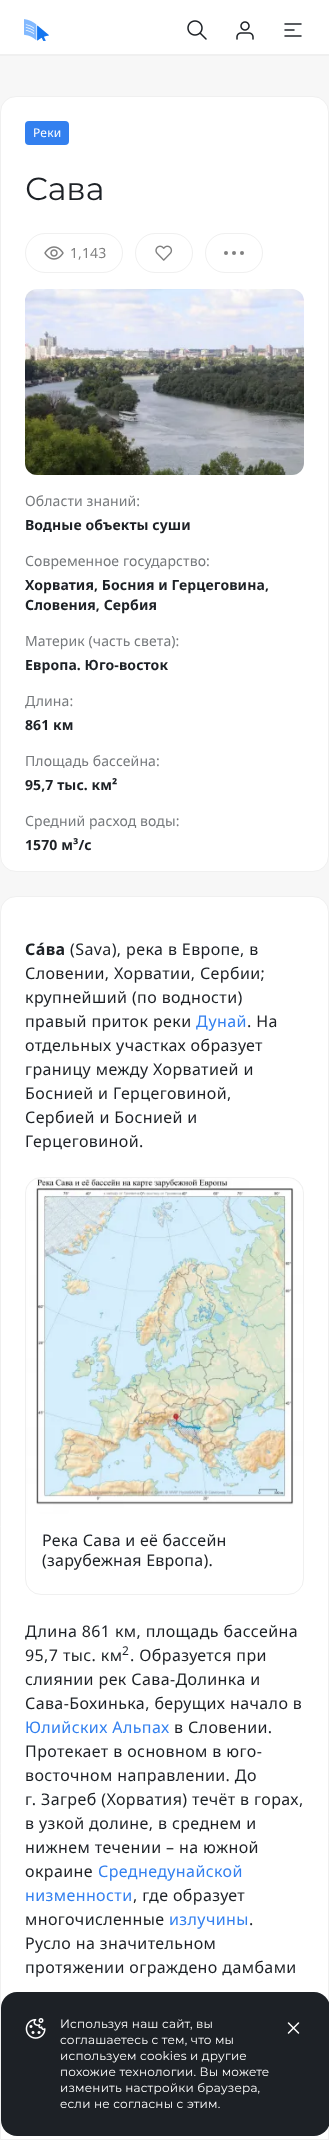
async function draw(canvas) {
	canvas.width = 329;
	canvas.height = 2140;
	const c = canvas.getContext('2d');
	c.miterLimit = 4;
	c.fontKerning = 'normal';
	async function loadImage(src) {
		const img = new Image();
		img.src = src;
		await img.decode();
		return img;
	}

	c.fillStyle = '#f7f7f7';
	c.fillRect(0, 0, 329, 2140);
	c.fillStyle = '#fff';
	c.fillRect(0, 0, 329, 54);
	c.fillStyle = '#f0f0f0';
	c.fillRect(0, 54, 329, 2);
	c.drawImage(await loadImage('img1.png'), 24, 19, 25, 22);
	c.drawImage(await loadImage('img2.png'), 187, 20, 20, 20);
	c.drawImage(await loadImage('img3.png'), 236, 21, 18, 19);
	c.drawImage(await loadImage('img4.png'), 284, 23, 18, 14);
	c.fillStyle = '#fff';
	c.beginPath();
	c.roundRect(0.5, 96.5, 328, 775, 15.5);
	c.fill();
	c.strokeStyle = '#f0f0f0';
	c.stroke();
	c.fillStyle = '#3380ef';
	c.beginPath();
	c.roundRect(25, 121, 44, 24, 4);
	c.fill();
	c.letterSpacing = '0.2px';
	c.font = '12px Noto Sans';
	c.fillStyle = '#fff';
	c.fillText('Реки', 33, 137);
	c.letterSpacing = '0px';
	c.font = '32px Montserrat';
	c.fillStyle = '#1d2126';
	c.fillText('Сава', 25, 200);
	c.beginPath();
	c.roundRect(25.5, 233.5, 97, 39, 19.5);
	c.stroke();
	c.drawImage(await loadImage('img5.png'), 44, 246, 20, 14);
	c.letterSpacing = '0.1px';
	c.font = '14px Noto Sans';
	c.fillStyle = '#808080';
	c.fillText('1,143', 70, 258);
	c.beginPath();
	c.roundRect(135.5, 233.5, 57, 39, 19.5);
	c.stroke();
	c.drawImage(await loadImage('img6.png'), 155, 245, 18, 16);
	c.beginPath();
	c.roundRect(205.5, 233.5, 57, 39, 19.5);
	c.stroke();
	c.beginPath();
	c.arc(226, 253, 2, 0, 2 * Math.PI);
	c.fill();
	c.beginPath();
	c.arc(234, 253, 2, 0, 2 * Math.PI);
	c.fill();
	c.beginPath();
	c.arc(242, 253, 2, 0, 2 * Math.PI);
	c.fill();
	c.drawImage(await loadImage('img7.png'), 25, 289, 279, 186);
	c.fillStyle = '#777a7d';
	c.fillText('Области знаний:', 25, 506);
	c.font = 'bold 14px Noto Sans';
	c.fillStyle = '#1d2126';
	c.fillText('Водные объекты суши', 25, 530);
	c.font = '14px Noto Sans';
	c.fillStyle = '#777a7d';
	c.fillText('Современное государство:', 25, 566);
	c.font = 'bold 14px Noto Sans';
	c.fillStyle = '#1d2126';
	c.fillText('Хорватия, Босния и Герцеговина,', 25, 590);
	c.fillText('Словения, Сербия', 25, 610);
	c.font = '14px Noto Sans';
	c.fillStyle = '#777a7d';
	c.fillText('Материк (часть света):', 25, 646);
	c.font = 'bold 14px Noto Sans';
	c.fillStyle = '#1d2126';
	c.fillText('Европа. Юго-восток', 25, 670);
	c.font = '14px Noto Sans';
	c.fillStyle = '#777a7d';
	c.fillText('Длина:', 25, 706);
	c.font = 'bold 14px Noto Sans';
	c.fillStyle = '#1d2126';
	c.fillText('861 км', 25, 730);
	c.font = '14px Noto Sans';
	c.fillStyle = '#777a7d';
	c.fillText('Площадь бассейна:', 25, 766);
	c.font = 'bold 14px Noto Sans';
	c.fillStyle = '#1d2126';
	c.fillText('95,7 тыс. км²', 25, 790);
	c.font = '14px Noto Sans';
	c.fillStyle = '#777a7d';
	c.fillText('Средний расход воды:', 25, 826);
	c.font = 'bold 14px Noto Sans';
	c.fillStyle = '#1d2126';
	c.fillText('1570 м³/с', 25, 850);
	c.fillStyle = '#fff';
	c.beginPath();
	c.roundRect(0.5, 896.5, 328, 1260, 15.5);
	c.fill();
	c.stroke();
	c.letterSpacing = '0.4px';
	c.font = 'bold 16px Noto Sans';
	c.fillStyle = '#1d2126';
	c.fillText('Са́ва', 25, 955);
	c.font = '16px Noto Sans';
	for (const [text, x, y] of [
		['(Sava), река в Европе, в', 70, 955],
		['Словении, Хорватии, Сербии;', 25, 979],
		['крупнейший (по водности)', 25, 1003],
		['правый приток реки', 25, 1027],
	]) {
		c.fillText(text, x, y);
	}
	c.fillStyle = '#3380ef';
	c.fillText('Дунай', 196, 1027);
	c.fillStyle = '#1d2126';
	for (const [text, x, y] of [
		['. На', 247, 1027],
		['отдельных участках образует', 25, 1051],
		['границу между Хорватией и', 25, 1075],
		['Боснией и Герцеговиной,', 25, 1099],
		['Сербией и Боснией и', 25, 1123],
		['Герцеговиной.', 25, 1147],
	]) {
		c.fillText(text, x, y);
	}
	c.beginPath();
	c.roundRect(25.5, 1177.5, 278, 417, 15.5);
	c.stroke();
	c.fillStyle = '#f0f0f0';
	c.beginPath();
	c.roundRect(26, 1178, 277, 336, [16, 16, 0, 0]);
	c.fill();
	c.drawImage(await loadImage('img8.png'), 26, 1178, 277, 336);
	c.letterSpacing = '0.25px';
	c.fillStyle = '#1d2126';
	c.fillText('Река Сава и её бассейн', 42, 1546);
	c.fillText('(зарубежная Европа).', 42, 1566);
	c.letterSpacing = '0.4px';
	c.fillText('Длина 861 км, площадь бассейна', 25, 1637);
	c.fillText('95,7 тыс. км', 25, 1661);
	c.font = '12px Noto Sans';
	c.fillText('2', 122, 1655);
	c.font = '16px Noto Sans';
	for (const [text, x, y] of [
		['. Образуется при', 130, 1661],
		['слиянии рек Сава-Долинка и', 25, 1685],
		['Сава-Бохинька, берущих начало в', 25, 1709],
	]) {
		c.fillText(text, x, y);
	}
	c.fillStyle = '#3380ef';
	c.fillText('Юлийских Альпах', 25, 1733);
	c.fillStyle = '#1d2126';
	for (const [text, x, y] of [
		['в Словении.', 174, 1733],
		['Протекает в основном в юго-', 25, 1757],
		['восточном направлении. До', 25, 1781],
		['г. Загреб (Хорватия) течёт в горах,', 25, 1805],
		['в узкой долине, в среднем и', 25, 1829],
		['нижнем течении – на южной', 25, 1853],
		['окраине', 25, 1877],
	]) {
		c.fillText(text, x, y);
	}
	c.fillStyle = '#3380ef';
	c.fillText('Среднедунайской', 98, 1877);
	c.fillText('низменности', 25, 1901);
	c.fillStyle = '#1d2126';
	c.fillText(', где образует', 133, 1901);
	c.fillText('многочисленные', 25, 1925);
	c.fillStyle = '#3380ef';
	c.fillText('излучины', 169, 1925);
	c.fillStyle = '#1d2126';
	for (const [text, x, y] of [
		['.', 249, 1925],
		['Русло на значительном', 25, 1949],
		['протяжении ограждено дамбами', 25, 1973],
	]) {
		c.fillText(text, x, y);
	}
	c.fillStyle = '#fff';
	c.beginPath();
	c.roundRect(0.5, 2066.5, 328, 73, [15.5, 15.5, 0, 0]);
	c.fill();
	c.stroke();
	c.fillStyle = '#1d2126';
	c.beginPath();
	c.roundRect(1, 1992, 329, 144, 16);
	c.fill();
	c.drawImage(await loadImage('img9.png'), 25, 2018, 21, 21);
	c.letterSpacing = '0.2px';
	c.font = '12px Montserrat';
	c.fillStyle = '#fff';
	for (const [text, x, y] of [
		['Используя наш сайт, вы', 60, 2028],
		['соглашаетесь с тем, что мы', 60, 2044],
		['используем cookies и другие', 60, 2060],
		['похожие технологии. Вы можете', 60, 2076],
		['изменить настройки браузера,', 60, 2092],
		['если не согласны с этим.', 60, 2108],
	]) {
		c.fillText(text, x, y);
	}
	c.beginPath();
	c.moveTo(298.5, 2033);
	c.lineTo(288.5, 2023);
	c.moveTo(298.5, 2023);
	c.lineTo(288.5, 2033);
	c.strokeStyle = '#fff';
	c.lineWidth = 1.5;
	c.lineCap = 'round';
	c.lineJoin = 'round';
	c.stroke();
}

draw(document.querySelector('canvas'));
